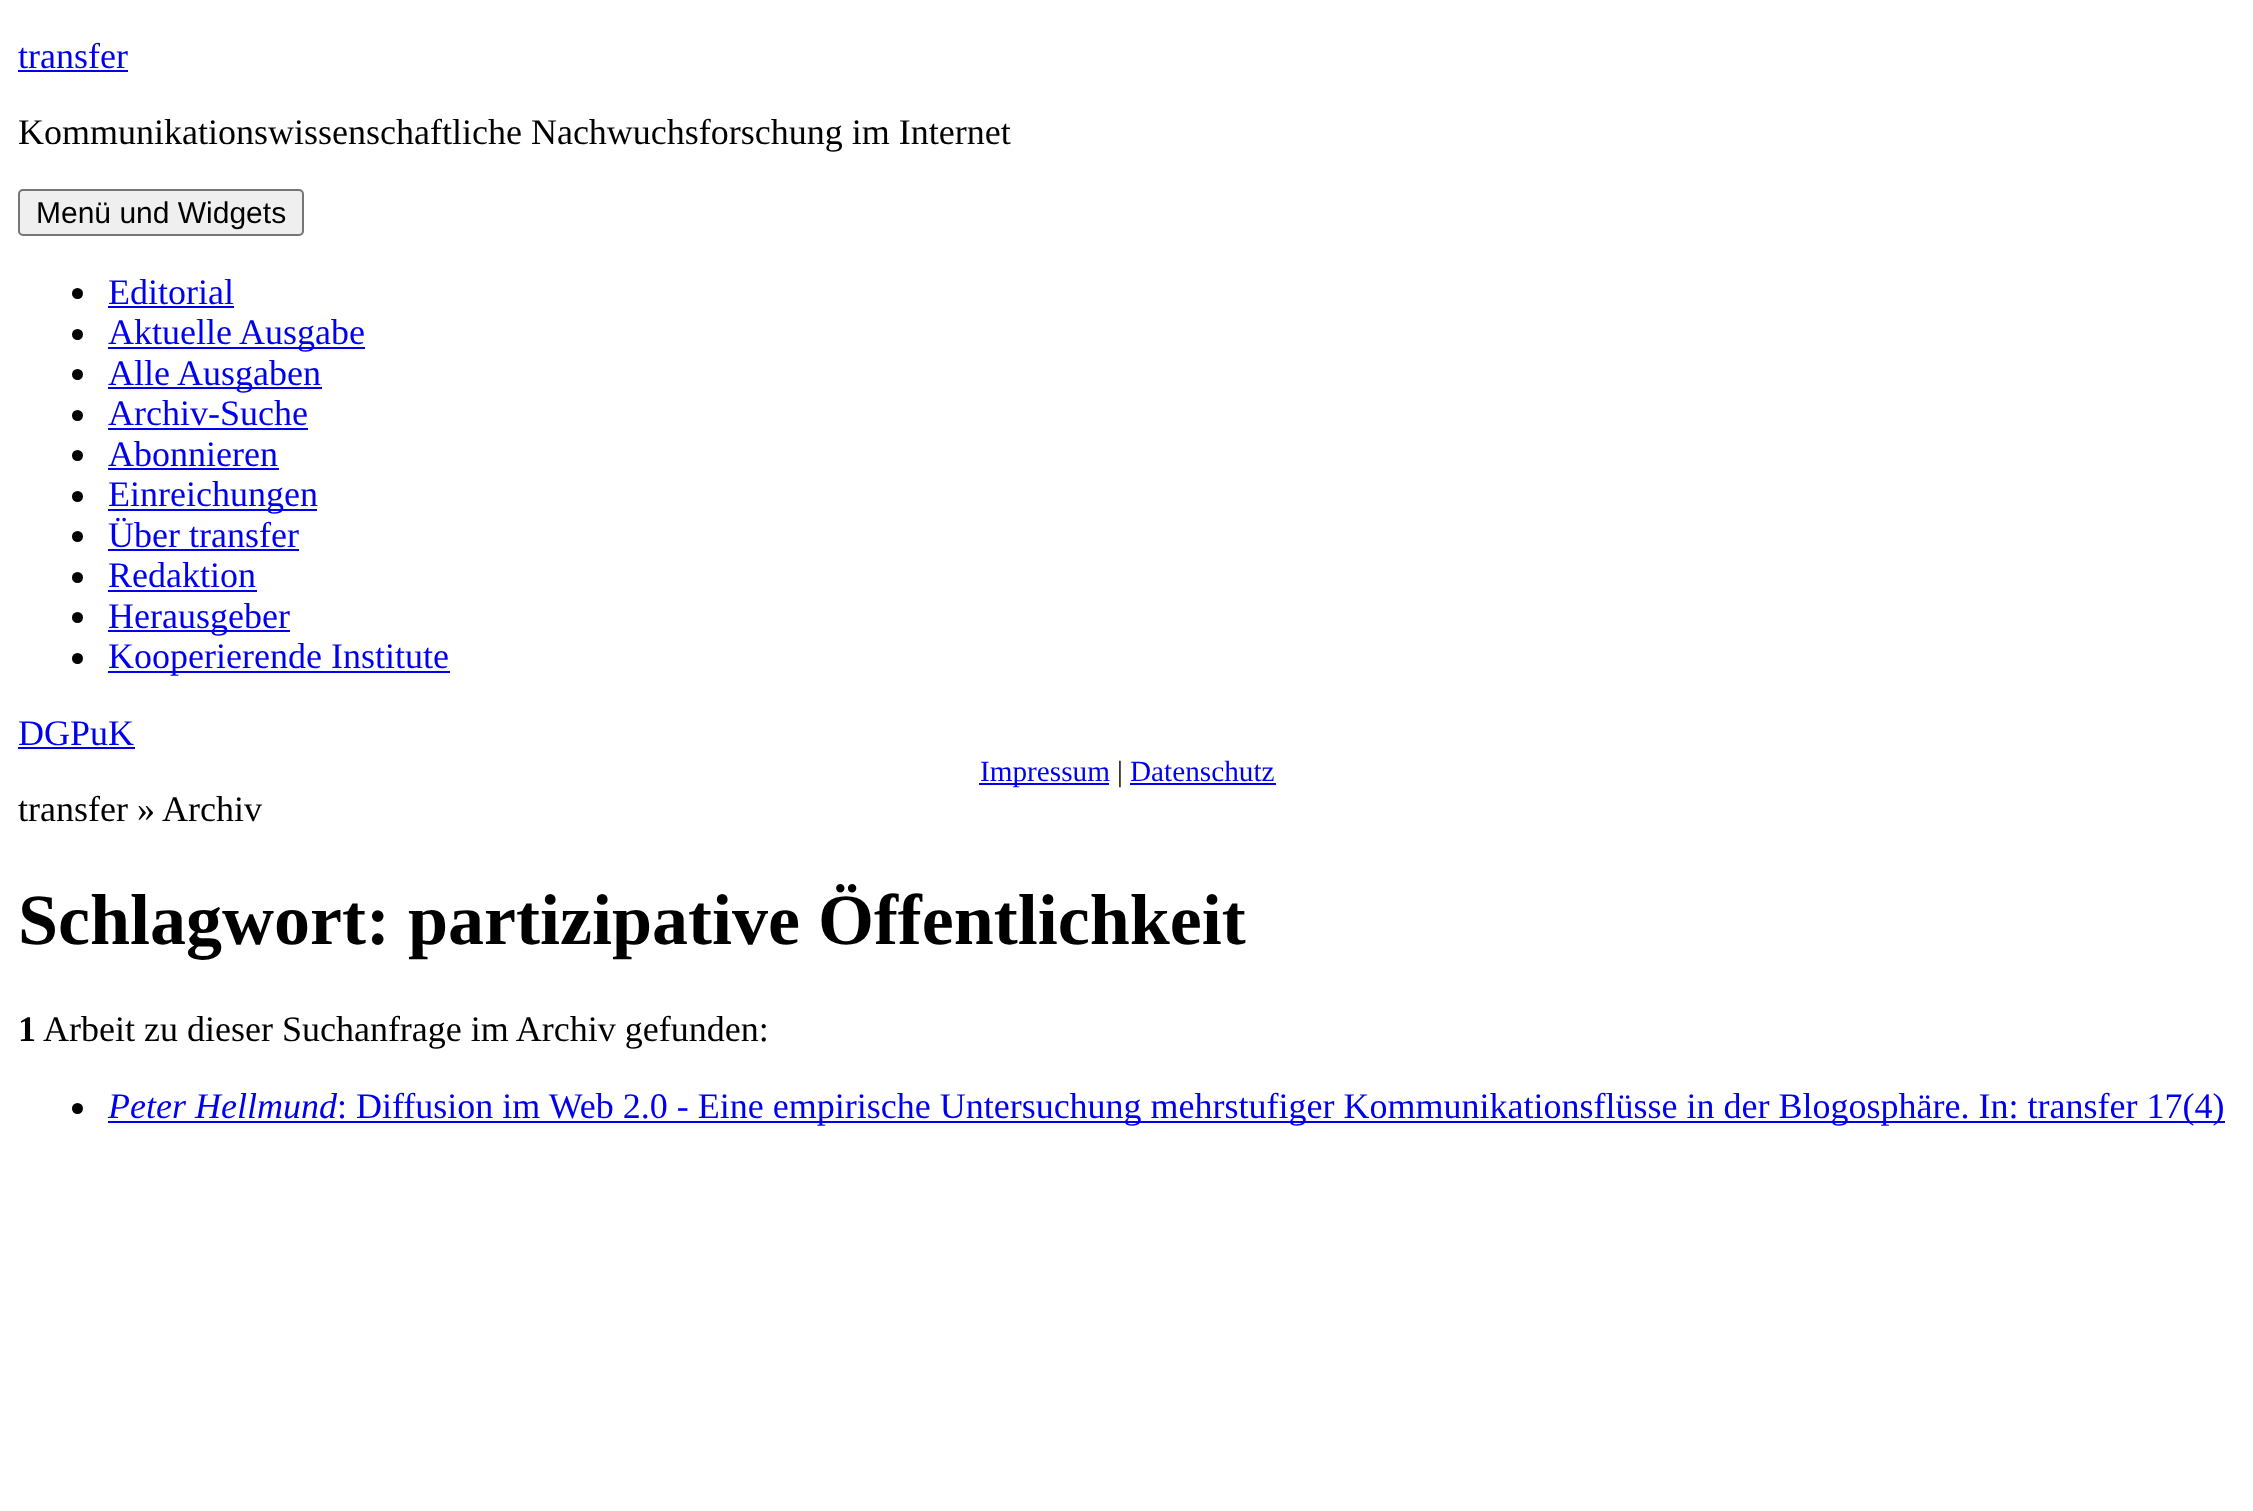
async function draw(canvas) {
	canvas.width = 2253;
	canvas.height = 1511;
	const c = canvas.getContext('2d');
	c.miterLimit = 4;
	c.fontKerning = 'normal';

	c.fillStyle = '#fff';
	c.fillRect(0, 0, 2253, 1511);
	c.font = '36px Liberation Serif';
	c.fillStyle = '#00e';
	c.fillText('transfer', 18, 68);
	c.fillRect(18, 70, 110, 2);
	c.fillStyle = '#000';
	c.fillText('Kommunikationswissenschaftliche Nachwuchsforschung im Internet', 18, 144);
	c.fillStyle = '#efefef';
	c.beginPath();
	c.roundRect(19, 190, 284, 45, 4);
	c.fill();
	c.strokeStyle = '#767676';
	c.lineWidth = 2;
	c.stroke();
	c.font = '30px Liberation Sans';
	c.fillStyle = '#000';
	c.fillText('Menü und Widgets', 36, 223);
	c.beginPath();
	c.arc(77.5, 293.5, 5.5, 0, 2 * Math.PI);
	c.fill();
	c.font = '36px Liberation Serif';
	c.fillStyle = '#00e';
	c.fillText('Editorial', 108, 304);
	c.fillRect(108, 306, 126, 2);
	c.fillStyle = '#000';
	c.beginPath();
	c.arc(77.5, 334.5, 5.5, 0, 2 * Math.PI);
	c.fill();
	c.fillStyle = '#00e';
	c.fillRect(108, 347, 257, 2);
	c.fillText('Aktuelle Ausgabe', 108, 344);
	c.fillStyle = '#000';
	c.beginPath();
	c.arc(77.5, 374.5, 5.5, 0, 2 * Math.PI);
	c.fill();
	c.fillStyle = '#00e';
	c.fillRect(108, 387, 214, 2);
	c.fillText('Alle Ausgaben', 108, 385);
	c.fillStyle = '#000';
	c.beginPath();
	c.arc(77.5, 415.5, 5.5, 0, 2 * Math.PI);
	c.fill();
	c.fillStyle = '#00e';
	c.fillText('Archiv-Suche', 108, 425);
	c.fillRect(108, 428, 200, 2);
	c.fillStyle = '#000';
	c.beginPath();
	c.arc(77.5, 455.5, 5.5, 0, 2 * Math.PI);
	c.fill();
	c.fillStyle = '#00e';
	c.fillText('Abonnieren', 108, 466);
	c.fillRect(108, 468, 171, 2);
	c.fillStyle = '#000';
	c.beginPath();
	c.arc(77.5, 496.5, 5.5, 0, 2 * Math.PI);
	c.fill();
	c.fillStyle = '#00e';
	c.fillRect(108, 509, 209, 2);
	c.fillText('Einreichungen', 108, 506);
	c.fillStyle = '#000';
	c.beginPath();
	c.arc(77.5, 536.5, 5.5, 0, 2 * Math.PI);
	c.fill();
	c.fillStyle = '#00e';
	c.fillText('Über transfer', 108, 547);
	c.fillRect(108, 549, 191, 2);
	c.fillStyle = '#000';
	c.beginPath();
	c.arc(77.5, 577.5, 5.5, 0, 2 * Math.PI);
	c.fill();
	c.fillStyle = '#00e';
	c.fillText('Redaktion', 108, 587);
	c.fillRect(108, 590, 149, 2);
	c.fillStyle = '#000';
	c.beginPath();
	c.arc(77.5, 617.5, 5.5, 0, 2 * Math.PI);
	c.fill();
	c.fillStyle = '#00e';
	c.fillRect(108, 630, 182, 2);
	c.fillText('Herausgeber', 108, 628);
	c.fillStyle = '#000';
	c.beginPath();
	c.arc(77.5, 658.5, 5.5, 0, 2 * Math.PI);
	c.fill();
	c.fillStyle = '#00e';
	c.fillRect(108, 671, 342, 2);
	c.fillText('Kooperierende Institute', 108, 668);
	c.fillText('DGPuK', 18, 745);
	c.fillRect(18, 747, 117, 2);
	c.fillRect(979, 783, 130, 2);
	c.font = '29.25px Liberation Serif';
	c.fillText('Impressum', 980, 781);
	c.fillStyle = '#000';
	c.fillText('|', 1117, 781);
	c.fillStyle = '#00e';
	c.fillText('Datenschutz', 1130, 781);
	c.fillRect(1130, 783, 146, 2);
	c.font = '36px Liberation Serif';
	c.fillStyle = '#000';
	c.fillText('transfer » Archiv', 18, 821);
	c.font = 'bold 72px Liberation Serif';
	c.fillText('Schlagwort: partizipative Öffentlichkeit', 18, 944);
	c.font = 'bold 36px Liberation Serif';
	c.fillText('1', 18, 1041);
	c.font = '36px Liberation Serif';
	c.fillText('Arbeit zu dieser Suchanfrage im Archiv gefunden:', 43, 1041);
	c.beginPath();
	c.arc(77.5, 1108.5, 5.5, 0, 2 * Math.PI);
	c.fill();
	c.font = 'italic 36px Liberation Serif';
	c.fillStyle = '#00e';
	c.fillText('Peter Hellmund', 108, 1118);
	c.fillRect(108, 1121, 2117, 2);
	c.font = '36px Liberation Serif';
	c.fillText(': Diffusion im Web 2.0 - Eine empirische Untersuchung mehrstufiger Kommunikationsflüsse in der Blogosphäre. In: transfer 17(4)', 337, 1118);
}

draw(document.querySelector('canvas'));
